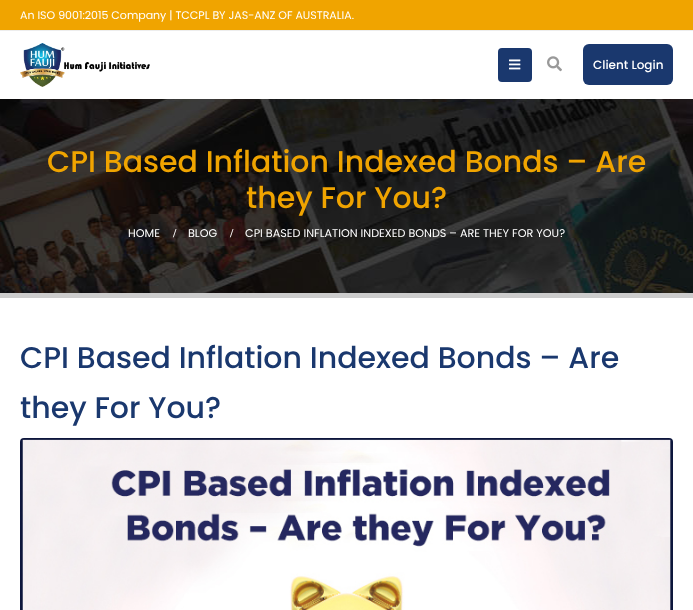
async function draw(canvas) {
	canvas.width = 693;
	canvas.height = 610;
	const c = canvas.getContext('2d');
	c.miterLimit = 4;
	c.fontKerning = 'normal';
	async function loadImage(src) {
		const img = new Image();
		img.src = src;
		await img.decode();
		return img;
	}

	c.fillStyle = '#fff';
	c.fillRect(0, 0, 693, 610);
	c.fillStyle = '#f0a400';
	c.fillRect(0, 0, 693, 30);
	c.fillStyle = '#ededed';
	c.fillRect(0, 30, 693, 1);
	c.font = '11px Poppins';
	c.fillStyle = '#fff';
	c.fillText('An ISO 9001:2015 Company | TCCPL BY JAS-ANZ OF AUSTRALIA.', 20, 19);
	c.drawImage(await loadImage('img1.png'), 20, 43, 130, 44);
	c.fillStyle = '#1a386e';
	c.beginPath();
	c.roundRect(498, 48, 34, 34, 4);
	c.fill();
	c.drawImage(await loadImage('img2.png'), 509, 59, 12, 11);
	c.drawImage(await loadImage('img3.png'), 547, 56, 15, 16);
	c.beginPath();
	c.roundRect(583, 44, 90, 41, 6);
	c.fill();
	c.font = '500 12px Poppins';
	c.fillStyle = '#fff';
	c.fillText('Client Login', 593, 69);
	c.drawImage(await loadImage('img4.png'), 0, 99, 693, 194);
	c.fillStyle = '#ccc';
	c.fillRect(0, 293, 693, 5);
	c.font = '500 30px Poppins';
	c.fillStyle = '#f0a400';
	c.fillText('CPI Based Inflation Indexed Bonds – Are', 47, 172);
	c.fillText('they For You?', 246, 208);
	c.font = '11.2px Poppins';
	c.fillStyle = '#fff';
	c.fillText('HOME', 128, 237);
	c.font = 'bold 12px Liberation Serif';
	c.fillText('/', 173, 237);
	c.font = '11.2px Poppins';
	c.fillText('BLOG', 188, 237);
	c.font = 'bold 12px Liberation Serif';
	c.fillText('/', 230, 237);
	c.font = '11.2px Poppins';
	c.fillText('CPI BASED INFLATION INDEXED BONDS – ARE THEY FOR YOU?', 245, 237);
	c.font = '500 30px Poppins';
	c.fillStyle = '#1a386e';
	c.fillText('CPI Based Inflation Indexed Bonds – Are', 20, 368);
	c.fillText('they For You?', 20, 418);
	c.drawImage(await loadImage('img5.png'), 20, 438, 653, 172);
}

draw(document.querySelector('canvas'));
